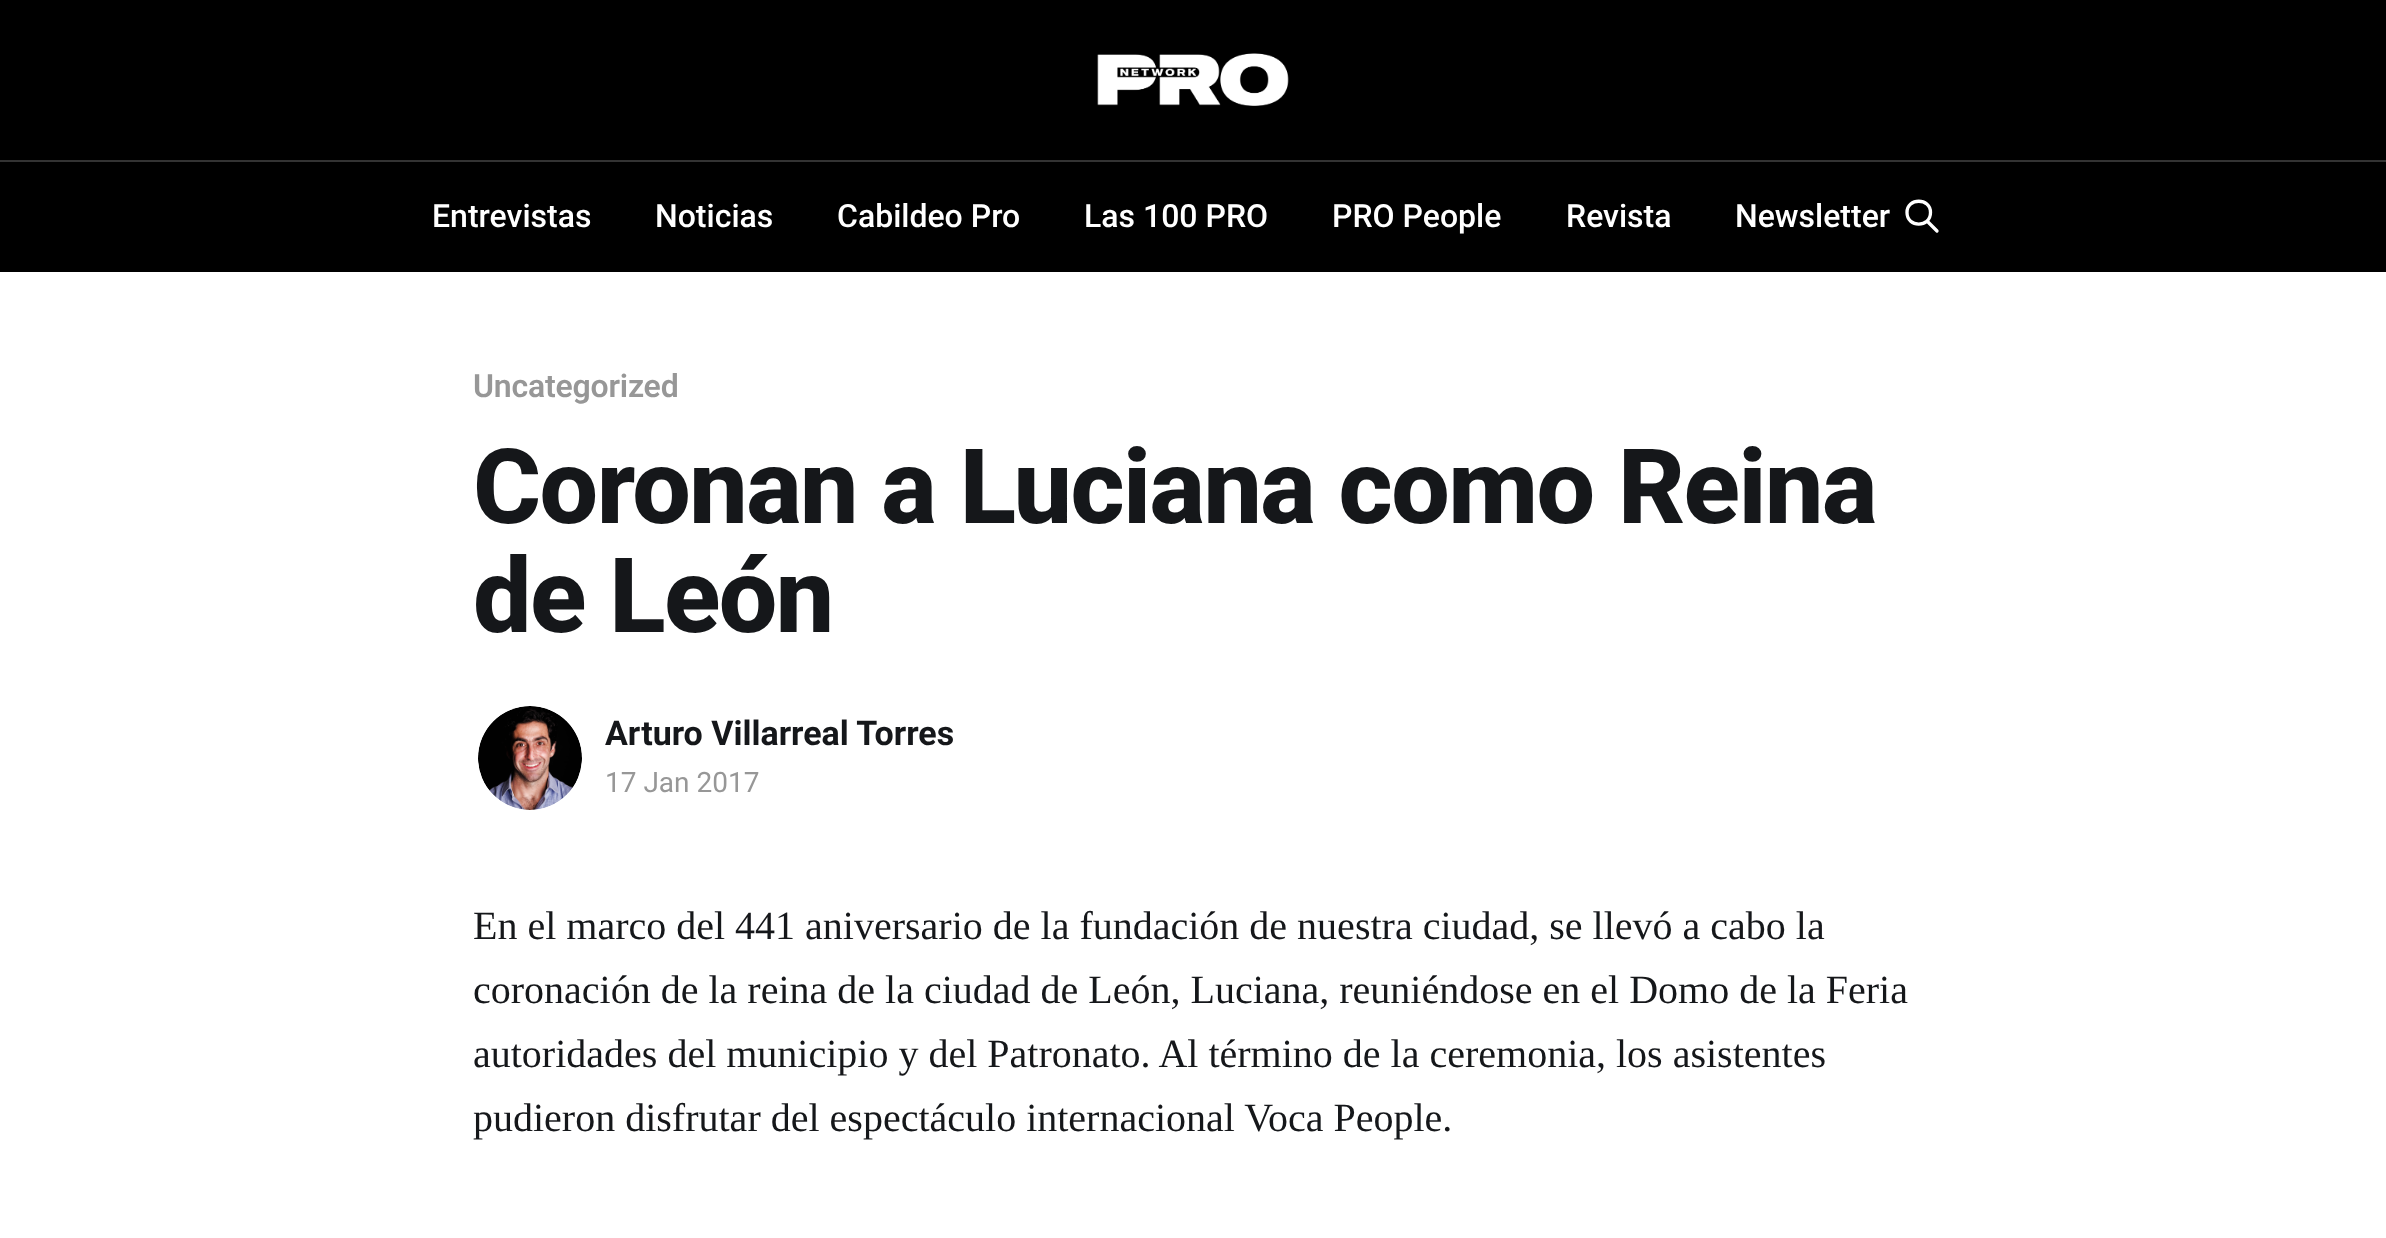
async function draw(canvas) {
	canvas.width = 2386;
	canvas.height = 1238;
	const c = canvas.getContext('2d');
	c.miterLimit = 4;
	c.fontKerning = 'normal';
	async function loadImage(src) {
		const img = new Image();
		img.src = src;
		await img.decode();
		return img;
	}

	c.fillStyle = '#fff';
	c.fillRect(0, 0, 2386, 1238);
	c.fillStyle = '#000';
	c.fillRect(0, 0, 2386, 272);
	c.drawImage(await loadImage('img1.png'), 1097, 53, 192, 53);
	c.fillStyle = '#333';
	c.fillRect(0, 160, 2386, 2);
	c.font = '500 32px Roboto';
	c.fillStyle = '#fff';
	for (const [text, x, y] of [
		['Entrevistas', 432, 227],
		['Noticias', 655, 227],
		['Cabildeo Pro', 837, 227],
		['Las 100 PRO', 1084, 227],
		['PRO People', 1332, 227],
		['Revista', 1566, 227],
		['Newsletter', 1735, 227],
	]) {
		c.fillText(text, x, y);
	}
	c.beginPath();
	c.moveTo(1937, 231);
	c.lineTo(1927, 221);
	c.moveTo(1930.5, 212.5);
	c.bezierCurveTo(1930.5, 228, 1907, 228, 1907, 212.5);
	c.bezierCurveTo(1907, 197.5, 1930.5, 197.5, 1930.5, 212.5);
	c.closePath();
	c.strokeStyle = '#fff';
	c.lineWidth = 3.3;
	c.lineCap = 'round';
	c.lineJoin = 'round';
	c.stroke();
	c.letterSpacing = '-0.2px';
	c.font = '600 32px Roboto';
	c.fillStyle = '#979797';
	c.fillText('Uncategorized', 473, 397);
	c.letterSpacing = '-1.55px';
	c.font = '800 104px Roboto';
	c.fillStyle = '#15171a';
	c.fillText('Coronan a Luciana como Reina', 473, 523);
	c.fillText('de León', 473, 632);
	c.drawImage(await loadImage('img2.png'), 478, 706, 104, 104);
	c.letterSpacing = '0px';
	c.font = 'bold 34px Roboto';
	c.fillText('Arturo Villarreal Torres', 605, 745);
	c.font = '28px Roboto';
	c.fillStyle = '#979797';
	c.fillText('17 Jan 2017', 605, 792);
	c.font = '40px Liberation Serif';
	c.fillStyle = '#15171a';
	for (const [text, x, y] of [
		['En el marco del 441 aniversario de la fundación de nuestra ciudad, se llevó a cabo la', 473, 939],
		['coronación de la reina de la ciudad de León, Luciana, reuniéndose en el Domo de la Feria', 473, 1003],
		['autoridades del municipio y del Patronato. Al término de la ceremonia, los asistentes', 473, 1067],
		['pudieron disfrutar del espectáculo internacional Voca People.', 473, 1131],
	]) {
		c.fillText(text, x, y);
	}
}

draw(document.querySelector('canvas'));
